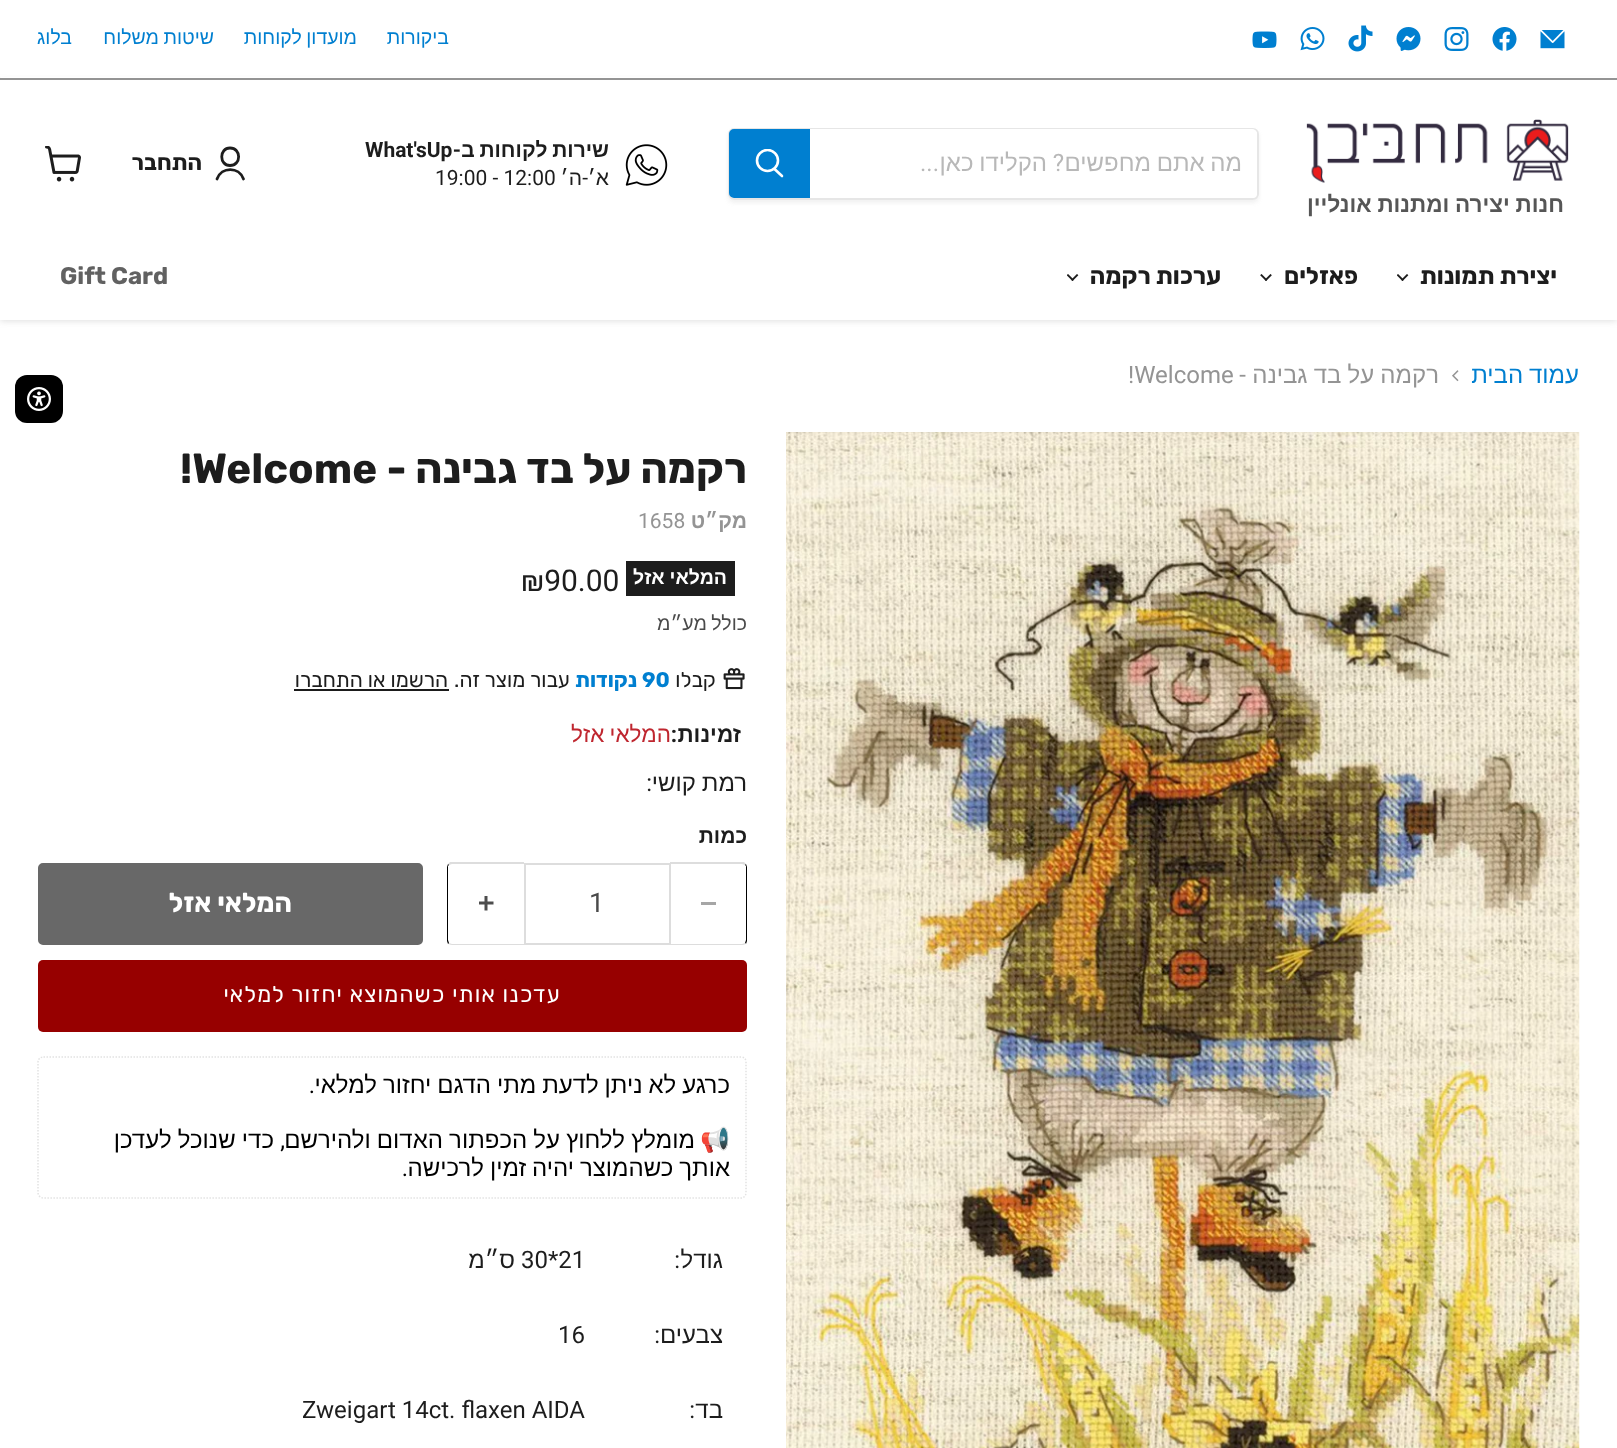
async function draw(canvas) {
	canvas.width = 1617;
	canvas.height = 1448;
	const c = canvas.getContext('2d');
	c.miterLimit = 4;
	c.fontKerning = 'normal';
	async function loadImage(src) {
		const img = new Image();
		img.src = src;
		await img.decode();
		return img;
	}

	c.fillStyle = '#fff';
	c.fillRect(0, 0, 1617, 1448);
	c.fillStyle = '#80808040';
	c.filter = 'blur(3px)';
	c.beginPath();
	c.rect(0, 81, 1617, 240);
	c.fill();
	c.filter = 'none';
	c.fillStyle = '#fff';
	c.fillRect(1, 77, 1615, 1);
	c.fillStyle = '#949494';
	c.fillRect(0, 78, 1617, 2);
	c.drawImage(await loadImage('img1.png'), 1540, 30, 25, 19);
	c.drawImage(await loadImage('img2.png'), 1492, 27, 25, 24);
	c.drawImage(await loadImage('img3.png'), 1444, 27, 25, 24);
	c.drawImage(await loadImage('img4.png'), 1396, 27, 25, 24);
	c.drawImage(await loadImage('img5.png'), 1348, 25, 25, 27);
	c.drawImage(await loadImage('img6.png'), 1300, 27, 25, 24);
	c.drawImage(await loadImage('img7.png'), 1252, 31, 25, 17);
	c.direction = 'rtl';
	c.font = '19.5px Liberation Sans';
	c.fillStyle = '#007fd0';
	c.fillText('ביקורות', 449, 44);
	c.wordSpacing = '-1px';
	c.fillText('מועדון לקוחות', 357, 44);
	c.fillText('שיטות משלוח', 214, 44);
	c.wordSpacing = '0px';
	c.fillText('בלוג', 72, 44);
	c.fillStyle = '#fff';
	c.fillRect(0, 80, 1617, 240);
	c.save();
	c.beginPath();
	c.moveTo(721, 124);
	c.lineTo(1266, 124);
	c.lineTo(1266, 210);
	c.lineTo(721, 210);
	c.closePath();
	c.moveTo(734, 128);
	c.lineTo(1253, 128);
	c.bezierCurveTo(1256.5, 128, 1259, 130.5, 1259, 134);
	c.lineTo(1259, 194);
	c.bezierCurveTo(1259, 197.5, 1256.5, 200, 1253, 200);
	c.lineTo(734, 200);
	c.bezierCurveTo(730.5, 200, 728, 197.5, 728, 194);
	c.lineTo(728, 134);
	c.bezierCurveTo(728, 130.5, 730.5, 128, 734, 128);
	c.closePath();
	c.clip('evenodd');
	c.fillStyle = '#8080801c';
	c.filter = 'blur(2px)';
	c.beginPath();
	c.roundRect(728, 131, 531, 72, 6);
	c.fill();
	c.filter = 'none';
	c.restore();
	c.beginPath();
	c.roundRect(729, 129, 529, 70, 5);
	c.strokeStyle = '#80808033';
	c.lineWidth = 2;
	c.stroke();
	c.beginPath();
	c.roundRect(810, 129, 447, 69, [0, 5, 5, 0]);
	c.fill();
	c.wordSpacing = '-1px';
	c.font = '24px Liberation Sans';
	c.fillStyle = '#b8b8b8';
	c.fillText('מה אתם מחפשים', 1242, 171);
	c.wordSpacing = '0px';
	c.font = '24px Roboto';
	c.fillText('?', 1064, 171);
	c.wordSpacing = '-1px';
	c.font = '24px Liberation Sans';
	c.fillText('הקלידו כאן', 1047, 171);
	c.wordSpacing = '0px';
	c.font = '24px Roboto';
	c.fillText('...', 939, 171);
	c.fillStyle = '#007fd0';
	c.beginPath();
	c.roundRect(730, 130, 79, 67, [4, 0, 0, 4]);
	c.fill();
	c.strokeStyle = '#007fd0';
	c.stroke();
	c.beginPath();
	c.moveTo(782, 176);
	c.lineTo(774.5, 169);
	c.strokeStyle = '#fff';
	c.lineWidth = 2.6;
	c.lineCap = 'round';
	c.stroke();
	c.save();
	c.beginPath();
	c.rect(755, 149, 30, 31);
	c.clip();
	c.beginPath();
	c.arc(767.5, 160.5, 10.5, 0, 2 * Math.PI);
	c.stroke();
	c.restore();
	c.drawImage(await loadImage('img8.png'), 625, 144, 43, 42);
	c.wordSpacing = '-1px';
	c.font = 'bold 21px Liberation Sans';
	c.fillStyle = '#1d1d1d';
	c.fillText('שירות לקוחות ב', 609, 157);
	c.wordSpacing = '0px';
	c.font = 'bold 21px Roboto';
	c.fillText('-', 461, 157);
	c.direction = 'ltr';
	c.fillText('What\'sUp', 365, 157);
	c.direction = 'rtl';
	c.font = '21px Liberation Sans';
	c.fillText('א׳', 609, 185);
	c.font = '21px Roboto';
	c.fillText('-', 588, 185);
	c.font = '21px Liberation Sans';
	c.fillText('ה׳', 582, 185);
	c.direction = 'ltr';
	c.font = '21px Roboto';
	c.fillText('19:00 - 12:00', 435, 185);
	c.drawImage(await loadImage('img9.png'), 1306, 119, 263, 64);
	c.wordSpacing = '-0.5px';
	c.direction = 'rtl';
	c.font = 'bold 22.5px Liberation Sans';
	c.fillStyle = '#565656';
	c.fillText('חנות יצירה ומתנות אונליין', 1564, 212);
	c.beginPath();
	c.moveTo(230, 165.5);
	c.bezierCurveTo(241.5, 165.5, 241.5, 148, 230, 148);
	c.bezierCurveTo(219, 148, 219, 165.5, 230, 165.5);
	c.closePath();
	c.moveTo(243.5, 179);
	c.bezierCurveTo(239, 166.5, 221.5, 166.5, 217, 179);
	c.strokeStyle = '#1d1d1d';
	c.lineWidth = 2.8;
	c.lineJoin = 'round';
	c.stroke();
	c.wordSpacing = '0px';
	c.font = '300 22.5px Rubik';
	c.fillStyle = '#1d1d1d';
	c.fillText('התחבר', 202, 170);
	c.drawImage(await loadImage('img10.png'), 45, 146, 36, 36);
	c.font = '300 24px Rubik';
	c.fillText('יצירת תמונות', 1557, 284);
	c.drawImage(await loadImage('img11.png'), 1397, 274, 12, 7);
	c.fillText('פאזלים', 1358, 284);
	c.drawImage(await loadImage('img12.png'), 1260, 274, 12, 7);
	c.fillText('ערכות רקמה', 1221, 284);
	c.drawImage(await loadImage('img11.png'), 1067, 274, 12, 7);
	c.direction = 'ltr';
	c.fillStyle = '#616161';
	c.fillText('Gift Card', 60, 284);
	c.wordSpacing = '-0.75px';
	c.direction = 'rtl';
	c.font = '24px Liberation Sans';
	c.fillStyle = '#007fd0';
	c.fillText('עמוד הבית', 1579, 383);
	c.drawImage(await loadImage('img13.png'), 1452, 370, 7, 12);
	c.wordSpacing = '-0.5px';
	c.fillStyle = '#949494';
	c.fillText('רקמה על בד גבינה', 1439, 383);
	c.wordSpacing = '0px';
	c.font = '24px Roboto';
	c.fillText('-', 1246, 383);
	c.direction = 'ltr';
	c.fillText('!Welcome', 1128, 383);
	c.drawImage(await loadImage('img14.png'), 786, 432, 794, 1016);
	c.direction = 'rtl';
	c.font = '300 42px Rubik';
	c.fillStyle = '#1d1d1d';
	c.fillText('רקמה על בד גבינה -', 747, 483);
	c.direction = 'ltr';
	c.fillText('!Welcome', 180, 483);
	c.direction = 'rtl';
	c.font = 'bold 21px Liberation Sans';
	c.fillStyle = '#949494';
	c.fillText('מק״ט', 747, 528);
	c.direction = 'ltr';
	c.font = '21px Roboto';
	c.fillText('1658', 638, 528);
	c.fillStyle = '#1d1d1d';
	c.fillRect(626, 561, 109, 35);
	c.wordSpacing = '-0.5px';
	c.direction = 'rtl';
	c.font = 'bold 19.5px Liberation Sans';
	c.fillStyle = '#fff';
	c.fillText('המלאי אזל', 727, 584);
	c.wordSpacing = '0px';
	c.direction = 'ltr';
	c.font = '30px Roboto';
	c.fillStyle = '#1d1d1d';
	c.fillText('₪90.00', 521, 591);
	c.wordSpacing = '-1px';
	c.direction = 'rtl';
	c.font = '19.5px Liberation Sans';
	c.fillStyle = '#4a4a4a';
	c.fillText('כולל מע״מ', 747, 630);
	c.drawImage(await loadImage('img15.png'), 723, 668, 22, 22);
	c.wordSpacing = '0px';
	c.font = '300 21px "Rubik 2"';
	c.fillStyle = '#1d1d1d';
	c.fillText('קבלו', 716, 687);
	c.direction = 'ltr';
	c.font = '300 21px Rubik';
	c.fillStyle = '#007fd0';
	c.fillText('90', 642, 687);
	c.direction = 'rtl';
	c.fillText('נקודות', 637, 687);
	c.font = '300 21px "Rubik 2"';
	c.fillStyle = '#1d1d1d';
	c.fillText('עבור מוצר זה.', 570, 687);
	c.fillText('הרשמו או התחברו', 448, 687);
	c.fillStyle = '#1b1b1b';
	c.fillRect(294, 689, 155, 2);
	c.font = 'bold 22.5px Liberation Sans';
	c.fillStyle = '#1d1d1d';
	c.fillText('זמינות', 741, 742);
	c.font = 'bold 22.5px Roboto';
	c.fillText(':', 677, 742);
	c.wordSpacing = '-1px';
	c.font = '22.5px Liberation Sans';
	c.fillStyle = '#bf262f';
	c.fillText('המלאי אזל', 671, 742);
	c.wordSpacing = '-0.75px';
	c.font = '24px Liberation Sans';
	c.fillStyle = '#1d1d1d';
	c.fillText('רמת קושי', 747, 791);
	c.wordSpacing = '0px';
	c.font = '24px Roboto';
	c.fillText(':', 652, 791);
	c.font = 'bold 21px Liberation Sans';
	c.fillText('כמות', 747, 843);
	c.fillStyle = '#ddd';
	c.beginPath();
	c.moveTo(670, 862);
	c.lineTo(744, 862);
	c.lineTo(746, 864);
	c.lineTo(745, 865);
	c.lineTo(742, 864);
	c.lineTo(670, 864);
	c.closePath();
	c.fill();
	c.fillStyle = '#000';
	c.beginPath();
	c.moveTo(745, 943);
	c.lineTo(746, 940);
	c.lineTo(746, 866);
	c.lineTo(745, 865);
	c.lineTo(746, 864);
	c.lineTo(747, 867);
	c.lineTo(747, 941);
	c.lineTo(746, 944);
	c.closePath();
	c.fill();
	c.fillStyle = '#ddd';
	c.beginPath();
	c.moveTo(670, 944);
	c.lineTo(742, 944);
	c.lineTo(745, 943);
	c.lineTo(746, 944);
	c.lineTo(743, 945);
	c.lineTo(670, 945);
	c.closePath();
	c.fill();
	c.fillStyle = '#a6a6a6';
	c.fillRect(701, 902, 15, 3);
	c.strokeStyle = '#ddd';
	c.lineWidth = 2;
	c.lineJoin = 'miter';
	c.strokeRect(525, 864, 145, 80);
	c.direction = 'ltr';
	c.font = '27px Roboto';
	c.fillStyle = '#4a4a4a';
	c.fillText('1', 589, 912);
	c.fillStyle = '#ddd';
	c.beginPath();
	c.moveTo(452, 864);
	c.lineTo(449, 865);
	c.lineTo(448, 864);
	c.lineTo(450, 862);
	c.lineTo(524, 862);
	c.lineTo(524, 864);
	c.closePath();
	c.fill();
	c.beginPath();
	c.moveTo(524, 945);
	c.lineTo(524, 944);
	c.lineTo(452, 944);
	c.lineTo(449, 943);
	c.lineTo(448, 944);
	c.bezierCurveTo(449, 944, 450, 945, 452, 945);
	c.closePath();
	c.fill();
	c.fillStyle = '#000';
	c.beginPath();
	c.moveTo(447, 867);
	c.lineTo(447, 941);
	c.lineTo(448, 944);
	c.lineTo(449, 943);
	c.lineTo(448, 940);
	c.lineTo(448, 866);
	c.lineTo(449, 865);
	c.lineTo(448, 864);
	c.closePath();
	c.fill();
	c.drawImage(await loadImage('img16.png'), 479, 896, 15, 15);
	c.fillStyle = '#686868';
	c.beginPath();
	c.roundRect(39, 864, 383, 80, 4);
	c.fill();
	c.strokeStyle = '#686868';
	c.stroke();
	c.direction = 'rtl';
	c.font = '300 27px Rubik';
	c.fillStyle = '#fff';
	c.fillText('המלאי אזל', 292, 912);
	c.fillStyle = '#970000';
	c.beginPath();
	c.roundRect(38, 960, 709, 72, 5);
	c.fill();
	c.letterSpacing = '1.2px';
	c.font = '300 22.5px "Rubik 2"';
	c.fillStyle = '#fff';
	c.fillText('עדכנו אותי כשהמוצא יחזור למלאי', 561, 1002);
	c.beginPath();
	c.moveTo(43.5, 1057);
	c.lineTo(741, 1057);
	c.bezierCurveTo(744, 1057, 746, 1059, 746, 1062);
	c.lineTo(746, 1192.5);
	c.bezierCurveTo(746, 1195.5, 744, 1198, 741, 1198);
	c.lineTo(43.5, 1198);
	c.bezierCurveTo(40.5, 1198, 38, 1195.5, 38, 1192.5);
	c.lineTo(38, 1062);
	c.bezierCurveTo(38, 1059, 40.5, 1057, 43.5, 1057);
	c.closePath();
	c.strokeStyle = '#e2e2e2';
	c.lineWidth = 1.5;
	c.lineCap = 'butt';
	c.setLineDash([1.5, 1.5]);
	c.stroke();
	c.letterSpacing = '0px';
	c.wordSpacing = '-0.75px';
	c.font = '24px Liberation Sans';
	c.fillStyle = '#000';
	c.fillText('כרגע לא ניתן לדעת מתי הדגם יחזור למלאי', 730, 1093);
	c.wordSpacing = '0px';
	c.font = '24px Roboto';
	c.fillText('.', 315, 1093);
	c.font = '24px Noto Color Emoji';
	c.fillText('📢', 730, 1148);
	c.wordSpacing = '-0.5px';
	c.font = '24px Liberation Sans';
	c.fillText('מומלץ ללחוץ על הכפתור האדום ולהירשם', 695, 1148);
	c.wordSpacing = '0px';
	c.font = '24px Roboto';
	c.fillText(',', 285, 1148);
	c.wordSpacing = '-0.5px';
	c.font = '24px Liberation Sans';
	c.fillText('כדי שנוכל לעדכן', 274, 1148);
	c.wordSpacing = '-0.75px';
	c.fillText('אותך כשהמוצר יהיה זמין לרכישה', 730, 1176);
	c.wordSpacing = '0px';
	c.font = '24px Roboto';
	c.fillText('.', 408, 1176);
	c.font = '24px Liberation Sans';
	c.fillStyle = '#1d1d1d';
	c.fillText('גודל', 723, 1268);
	c.font = '24px Roboto';
	c.fillText(':', 680, 1268);
	c.direction = 'ltr';
	c.fillText('30*21', 521, 1268);
	c.direction = 'rtl';
	c.font = '24px Liberation Sans';
	c.fillText('ס״מ', 515, 1268);
	c.fillText('צבעים', 723, 1343);
	c.font = '24px Roboto';
	c.fillText(':', 660, 1343);
	c.direction = 'ltr';
	c.fillText('16', 558, 1343);
	c.direction = 'rtl';
	c.font = '24px Liberation Sans';
	c.fillText('בד', 723, 1418);
	c.font = '24px Roboto';
	c.fillText(':', 695, 1418);
	c.direction = 'ltr';
	c.fillText('Zweigart 14ct. flaxen AIDA', 302, 1418);
	c.fillStyle = '#000';
	c.beginPath();
	c.roundRect(15, 375, 48, 48, 12);
	c.fill();
	c.drawImage(await loadImage('img17.png'), 27, 387, 24, 24);
}

draw(document.querySelector('canvas'));
